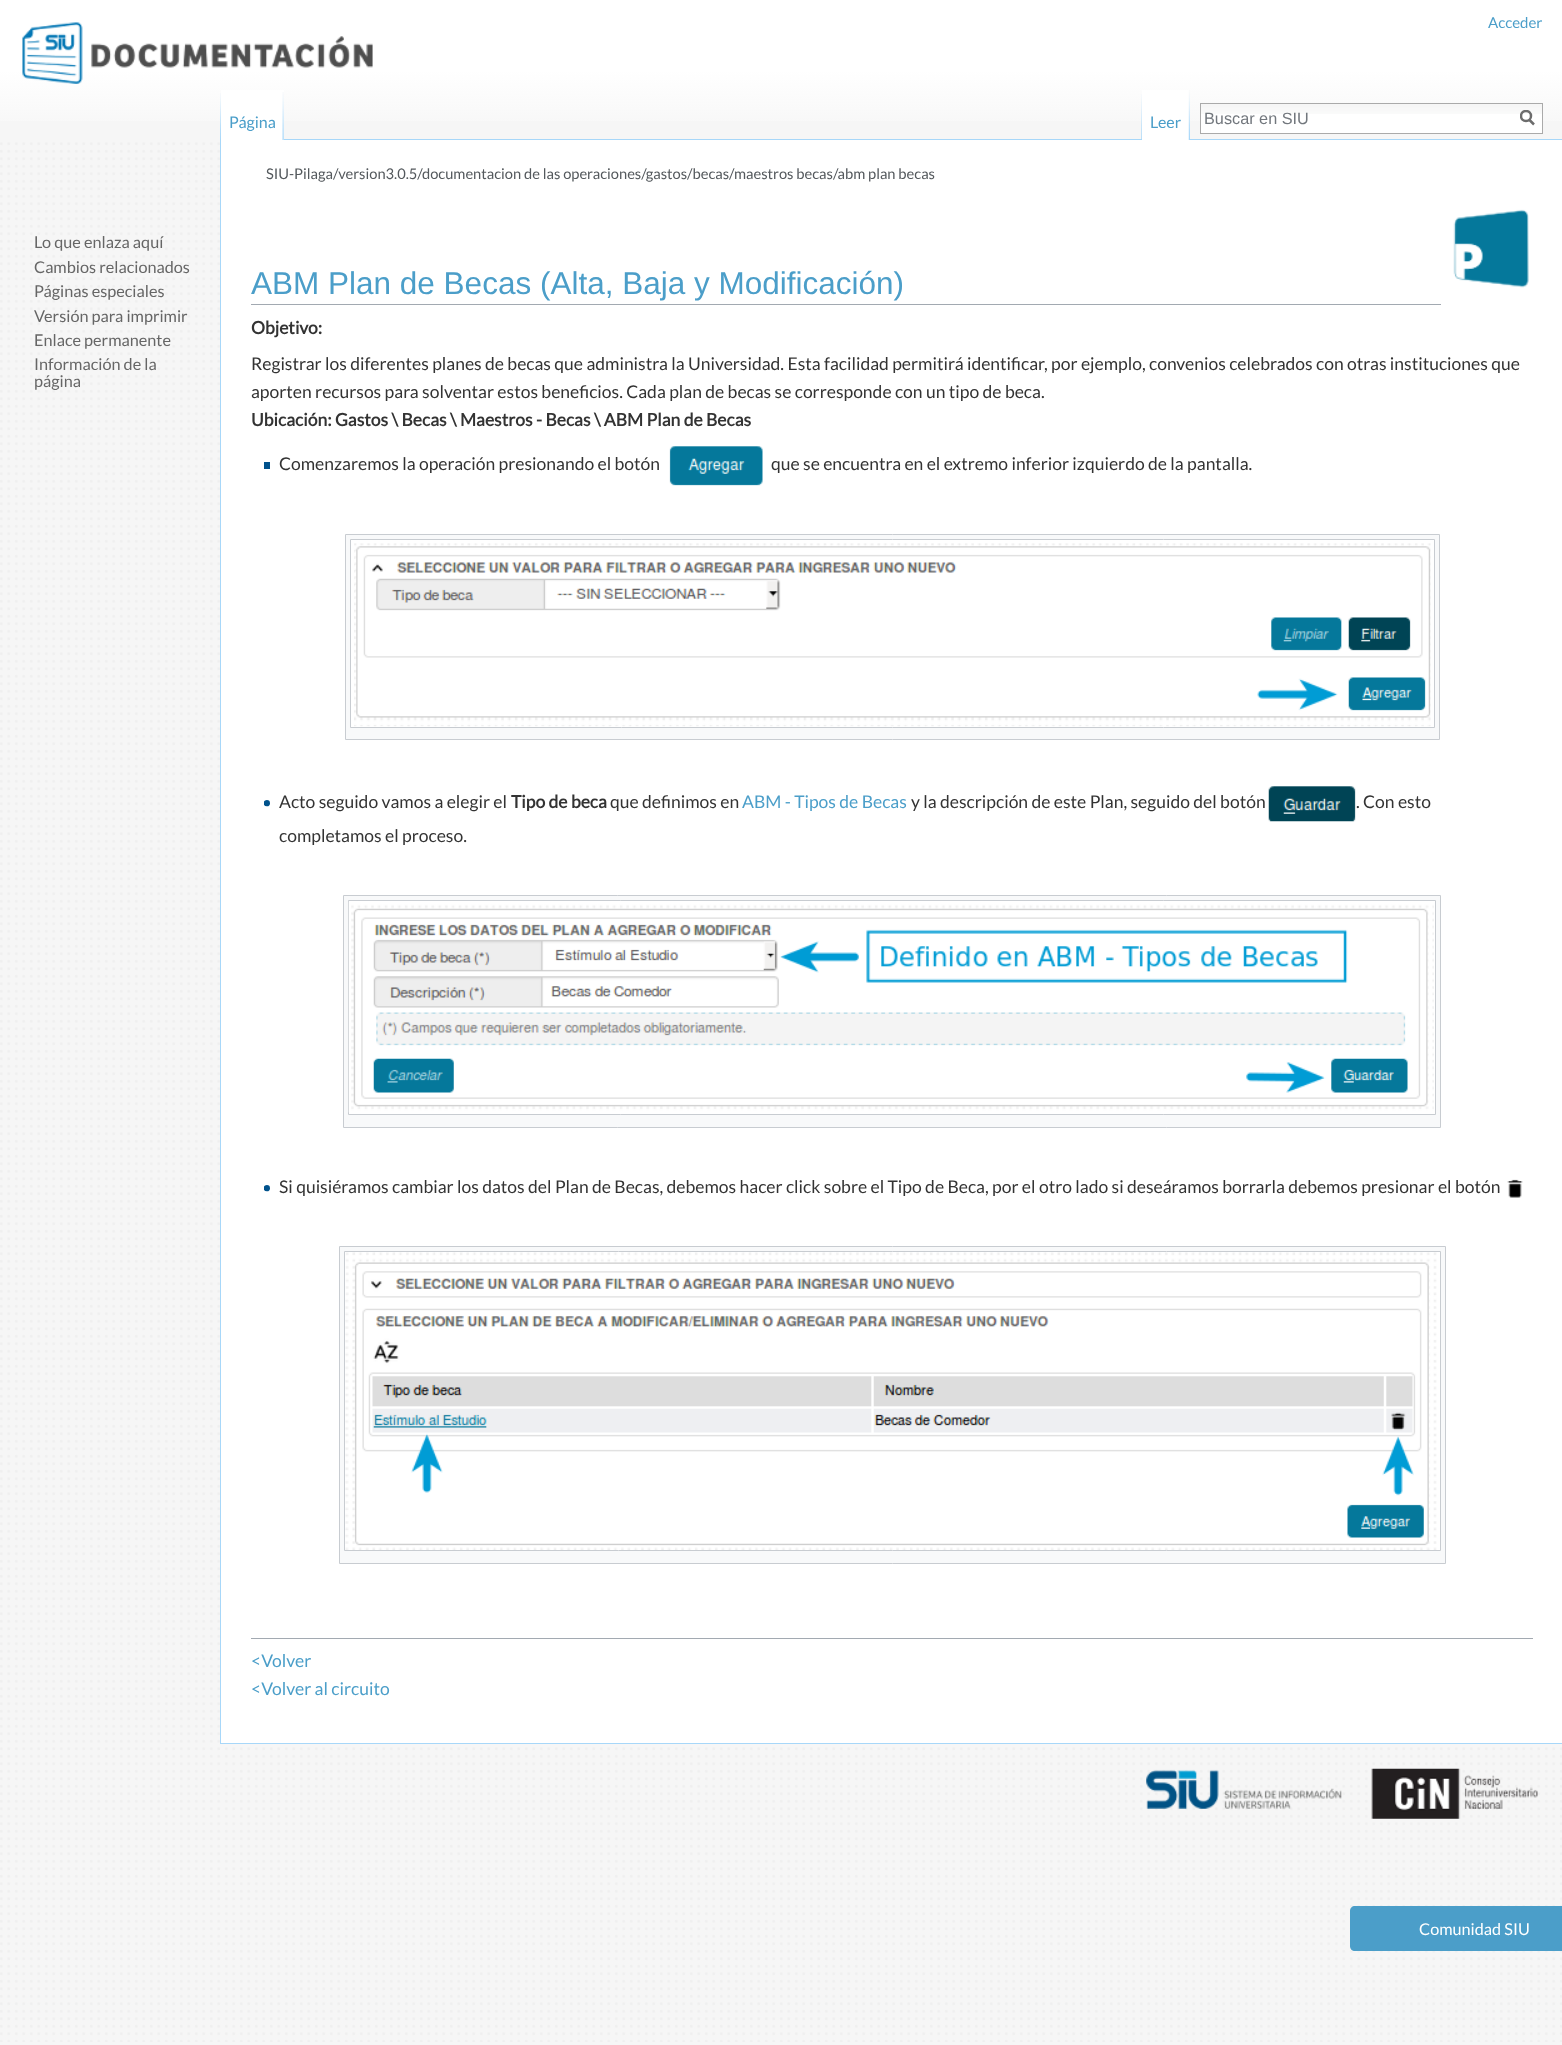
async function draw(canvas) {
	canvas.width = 1562;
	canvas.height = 2045;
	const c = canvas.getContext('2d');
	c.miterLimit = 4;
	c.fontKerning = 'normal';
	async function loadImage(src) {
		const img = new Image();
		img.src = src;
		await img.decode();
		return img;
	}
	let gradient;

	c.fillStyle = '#f6f6f6';
	c.fillRect(0, 0, 1562, 2045);
	c.drawImage(await loadImage('img1.png'), 0, 142, 1562, 1900);
	gradient = c.createLinearGradient(781, 0, 781, 140);
	gradient.addColorStop(0.5, '#fff');
	gradient.addColorStop(1, '#f6f6f6');
	c.fillStyle = gradient;
	c.fillRect(0, 0, 1562, 121);
	c.font = '15px Lato';
	c.fillStyle = '#4b9ec9';
	c.fillText('Acceder', 1488, 28);
	c.drawImage(await loadImage('img2.png'), 220, 93, 1, 46);
	c.fillStyle = '#fff';
	c.fillRect(221, 90, 63, 50);
	c.drawImage(await loadImage('img3.png'), 282, 92, 2, 48);
	c.font = '16px Lato';
	c.fillStyle = '#4b9ec9';
	c.fillText('Página', 229, 128);
	c.drawImage(await loadImage('img4.png'), 1141, 94, 1, 45);
	c.fillStyle = '#a7d7f9';
	c.fillRect(284, 139, 1278, 1);
	c.fillStyle = '#fff';
	c.fillRect(1142, 90, 47, 50);
	c.drawImage(await loadImage('img5.png'), 1188, 90, 2, 50);
	c.fillStyle = '#4b9ec9';
	c.fillText('Leer', 1150, 128);
	c.fillStyle = '#fff';
	c.fillRect(1201, 114, 341, 19);
	c.drawImage(await loadImage('img6.png'), 1201, 104, 341, 10);
	c.strokeStyle = '#aaa';
	c.strokeRect(1200.5, 103.5, 342, 30);
	c.font = '16.25px Liberation Sans';
	c.fillStyle = '#72777d';
	c.fillText('Buscar en SIU', 1204, 124);
	c.beginPath();
	c.moveTo(1534, 124.5);
	c.lineTo(1529, 119.5);
	c.strokeStyle = '#6c6c6c';
	c.lineWidth = 2.5;
	c.stroke();
	c.save();
	c.beginPath();
	c.rect(1520, 110, 15, 16);
	c.clip();
	c.beginPath();
	c.arc(1526, 116, 5, 0, 2 * Math.PI);
	c.stroke();
	c.restore();
	c.drawImage(await loadImage('img7.png'), 22, 22, 351, 62);
	c.font = '16.25px Lato';
	c.fillStyle = '#666';
	for (const [text, x, y] of [
		['Lo que enlaza aquí', 34, 248],
		['Cambios relacionados', 34, 273],
		['Páginas especiales', 34, 297],
		['Versión para imprimir', 34, 322],
		['Enlace permanente', 34, 346],
		['Información de la', 34, 370],
		['página', 34, 387],
	]) {
		c.fillText(text, x, y);
	}
	for (const [x, y, w, h, color] of [
		[221, 140, 1341, 1603, '#fff'],
		[220, 1743, 1342, 1, '#a7d7f9'],
		[220, 139, 1, 1605, '#a7d7f9'],
	]) {
		c.fillStyle = color;
		c.fillRect(x, y, w, h);
	}
	c.font = '14.7px Lato';
	c.fillStyle = '#54595d';
	c.fillText('SIU-Pilaga/version3.0.5/documentacion de las operaciones/gastos/becas/maestros becas/abm plan becas', 266, 179);
	c.fillStyle = '#a2a9b1';
	c.fillRect(251, 304, 1190, 1);
	c.font = '31.5px Arimo';
	c.fillStyle = '#4b9ec9';
	c.fillText('ABM Plan de Becas (Alta, Baja y Modificación)', 251, 294);
	c.drawImage(await loadImage('img8.png'), 1453, 209, 76, 79);
	c.font = 'bold 17.5px Lato';
	c.fillStyle = '#333';
	c.fillText('Objetivo:', 251, 334);
	c.font = '17.5px Lato';
	c.fillText('Registrar los diferentes planes de becas que administra la Universidad. Esta facilidad permitirá identificar, por ejemplo, convenios celebrados con otras instituciones que', 251, 370);
	c.fillText('aporten recursos para solventar estos beneficios. Cada plan de becas se corresponde con un tipo de beca.', 251, 398);
	c.font = 'bold 17.5px Lato';
	c.fillText('Ubicación: Gastos \\ Becas \\ Maestros - Becas \\ ABM Plan de Becas', 251, 426);
	c.fillStyle = '#00528c';
	c.fillRect(264, 462, 6, 7);
	c.font = '17.5px Lato';
	c.fillStyle = '#333';
	c.fillText('Comenzaremos la operación presionando el botón', 279, 470);
	c.drawImage(await loadImage('img9.png'), 669, 446, 94, 40);
	c.fillText('que se encuentra en el extremo inferior izquierdo de la pantalla.', 771, 470);
	c.fillStyle = '#f8f9fa';
	c.beginPath();
	c.rect(345.5, 534.5, 1094, 205);
	c.fill();
	c.strokeStyle = '#c8ccd1';
	c.lineWidth = 1;
	c.stroke();
	c.fillStyle = '#fff';
	c.beginPath();
	c.rect(350.5, 539.5, 1084, 188);
	c.fill();
	c.stroke();
	c.drawImage(await loadImage('img10.png'), 354, 543, 1077, 184);
	c.drawImage(await loadImage('img11.png'), 264, 800, 6, 7);
	c.fillStyle = '#333';
	c.fillText('Acto seguido vamos a elegir el', 279, 808);
	c.font = 'bold 17.5px Lato';
	c.fillText('Tipo de beca', 511, 808);
	c.font = '17.5px Lato';
	c.fillText('que definimos en', 610, 808);
	c.fillStyle = '#4b9ec9';
	c.fillText('ABM - Tipos de Becas', 742, 808);
	c.fillStyle = '#333';
	c.fillText('y la descripción de este Plan, seguido del botón', 911, 808);
	c.drawImage(await loadImage('img12.png'), 1268, 786, 88, 36);
	c.fillText('. Con esto', 1356, 808);
	c.fillText('completamos el proceso.', 279, 842);
	c.fillStyle = '#f8f9fa';
	c.beginPath();
	c.rect(343.5, 895.5, 1097, 232);
	c.fill();
	c.stroke();
	c.fillStyle = '#fff';
	c.beginPath();
	c.rect(348.5, 900.5, 1087, 214);
	c.fill();
	c.stroke();
	c.drawImage(await loadImage('img13.png'), 348, 901, 1086, 212);
	c.drawImage(await loadImage('img11.png'), 264, 1185, 6, 7);
	c.fillStyle = '#333';
	c.fillText('Si quisiéramos cambiar los datos del Plan de Becas, debemos hacer click sobre el Tipo de Beca, por el otro lado si deseáramos borrarla debemos presionar el botón', 279, 1193);
	c.drawImage(await loadImage('img14.png'), 1507, 1179, 16, 19);
	c.fillStyle = '#f8f9fa';
	c.beginPath();
	c.rect(339.5, 1246.5, 1106, 317);
	c.fill();
	c.stroke();
	c.fillStyle = '#fff';
	c.beginPath();
	c.rect(344.5, 1251.5, 1096, 299);
	c.fill();
	c.stroke();
	c.drawImage(await loadImage('img15.png'), 345, 1252, 1092, 298);
	c.fillStyle = '#a2a9b1';
	c.fillRect(251, 1638, 1282, 1);
	c.fillStyle = '#4b9ec9';
	c.fillText('<Volver', 251, 1667);
	c.fillText('<Volver al circuito', 251, 1695);
	c.drawImage(await loadImage('img16.png'), 1146, 1768, 392, 51);
	c.beginPath();
	c.moveTo(1355, 1906);
	c.lineTo(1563, 1906);
	c.lineTo(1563, 1951);
	c.lineTo(1355, 1951);
	c.bezierCurveTo(1352, 1951, 1350, 1949, 1350, 1946);
	c.lineTo(1350, 1911);
	c.bezierCurveTo(1350, 1908, 1352, 1906, 1355, 1906);
	c.closePath();
	c.fill();
	c.font = '16.25px Lato';
	c.fillStyle = '#fff';
	c.fillText('Comunidad SIU', 1419, 1935);
}

draw(document.querySelector('canvas'));
